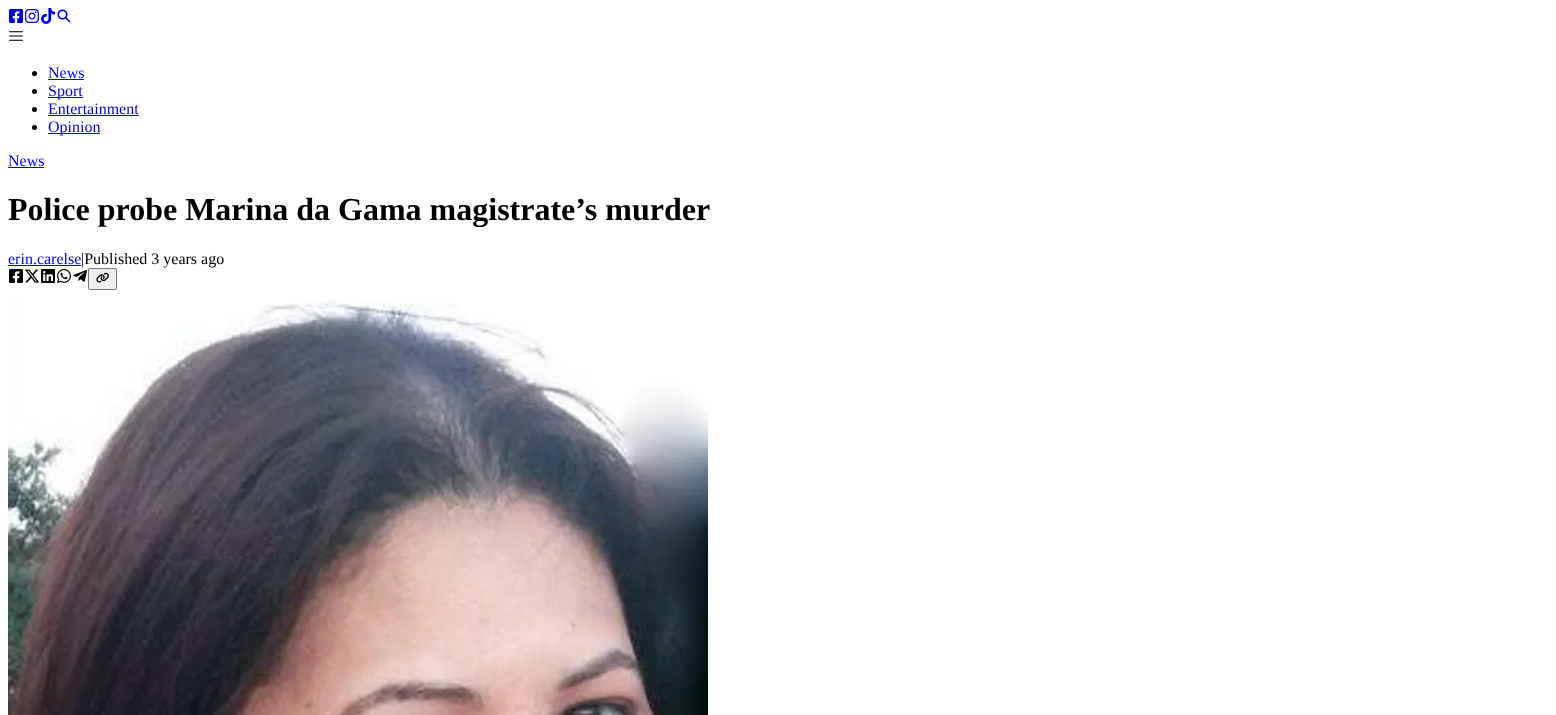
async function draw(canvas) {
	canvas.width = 1556;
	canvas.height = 715;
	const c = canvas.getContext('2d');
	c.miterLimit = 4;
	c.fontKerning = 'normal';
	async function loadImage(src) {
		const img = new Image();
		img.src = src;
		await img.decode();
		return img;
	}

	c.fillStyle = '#fff';
	c.fillRect(0, 0, 1556, 715);
	c.drawImage(await loadImage('img1.png'), 9, 9, 14, 14);
	c.drawImage(await loadImage('img2.png'), 25, 9, 14, 14);
	c.drawImage(await loadImage('img3.png'), 41, 8, 14, 16);
	c.drawImage(await loadImage('img4.png'), 57, 9, 14, 14);
	c.drawImage(await loadImage('img5.png'), 9, 31, 14, 10);
	c.fillStyle = '#000';
	c.beginPath();
	c.arc(34.5, 73.5, 2.5, 0, 2 * Math.PI);
	c.fill();
	c.font = '16px Liberation Serif';
	c.fillStyle = '#00e';
	c.fillText('News', 48, 78);
	c.fillRect(48, 79, 36, 1);
	c.fillStyle = '#000';
	c.beginPath();
	c.arc(34.5, 91.5, 2.5, 0, 2 * Math.PI);
	c.fill();
	c.fillStyle = '#00e';
	c.fillRect(48, 97, 35, 1);
	c.fillText('Sport', 48, 96);
	c.fillStyle = '#000';
	c.beginPath();
	c.arc(34.5, 109.5, 2.5, 0, 2 * Math.PI);
	c.fill();
	c.fillStyle = '#00e';
	c.fillText('Entertainment', 48, 114);
	c.fillRect(48, 115, 91, 1);
	c.fillStyle = '#000';
	c.beginPath();
	c.arc(34.5, 127.5, 2.5, 0, 2 * Math.PI);
	c.fill();
	c.fillStyle = '#00e';
	c.fillRect(48, 133, 52, 1);
	c.fillText('Opinion', 48, 132);
	c.fillText('News', 8, 166);
	c.fillRect(8, 167, 36, 1);
	c.font = 'bold 32px Liberation Serif';
	c.fillStyle = '#000';
	c.fillText('Police probe Marina da Gama magistrate’s murder', 8, 220);
	c.font = '16px Liberation Serif';
	c.fillStyle = '#00e';
	c.fillText('erin.carelse', 8, 264);
	c.fillRect(8, 265, 73, 1);
	c.fillStyle = '#000';
	c.fillText('|Published 3 years ago', 81, 264);
	c.drawImage(await loadImage('img6.png'), 9, 269, 14, 14);
	c.drawImage(await loadImage('img7.png'), 25, 269, 15, 14);
	c.drawImage(await loadImage('img8.png'), 41, 269, 14, 14);
	c.drawImage(await loadImage('img9.png'), 57, 269, 14, 14);
	c.drawImage(await loadImage('img10.png'), 73, 270, 14, 12);
	c.fillStyle = '#efefef';
	c.beginPath();
	c.roundRect(88.5, 268.5, 28, 21, 1.5);
	c.fill();
	c.strokeStyle = '#767676';
	c.stroke();
	c.drawImage(await loadImage('img11.png'), 96, 272, 13, 11);
	c.drawImage(await loadImage('img12.png'), 8, 299, 700, 416);
}

draw(document.querySelector('canvas'));
